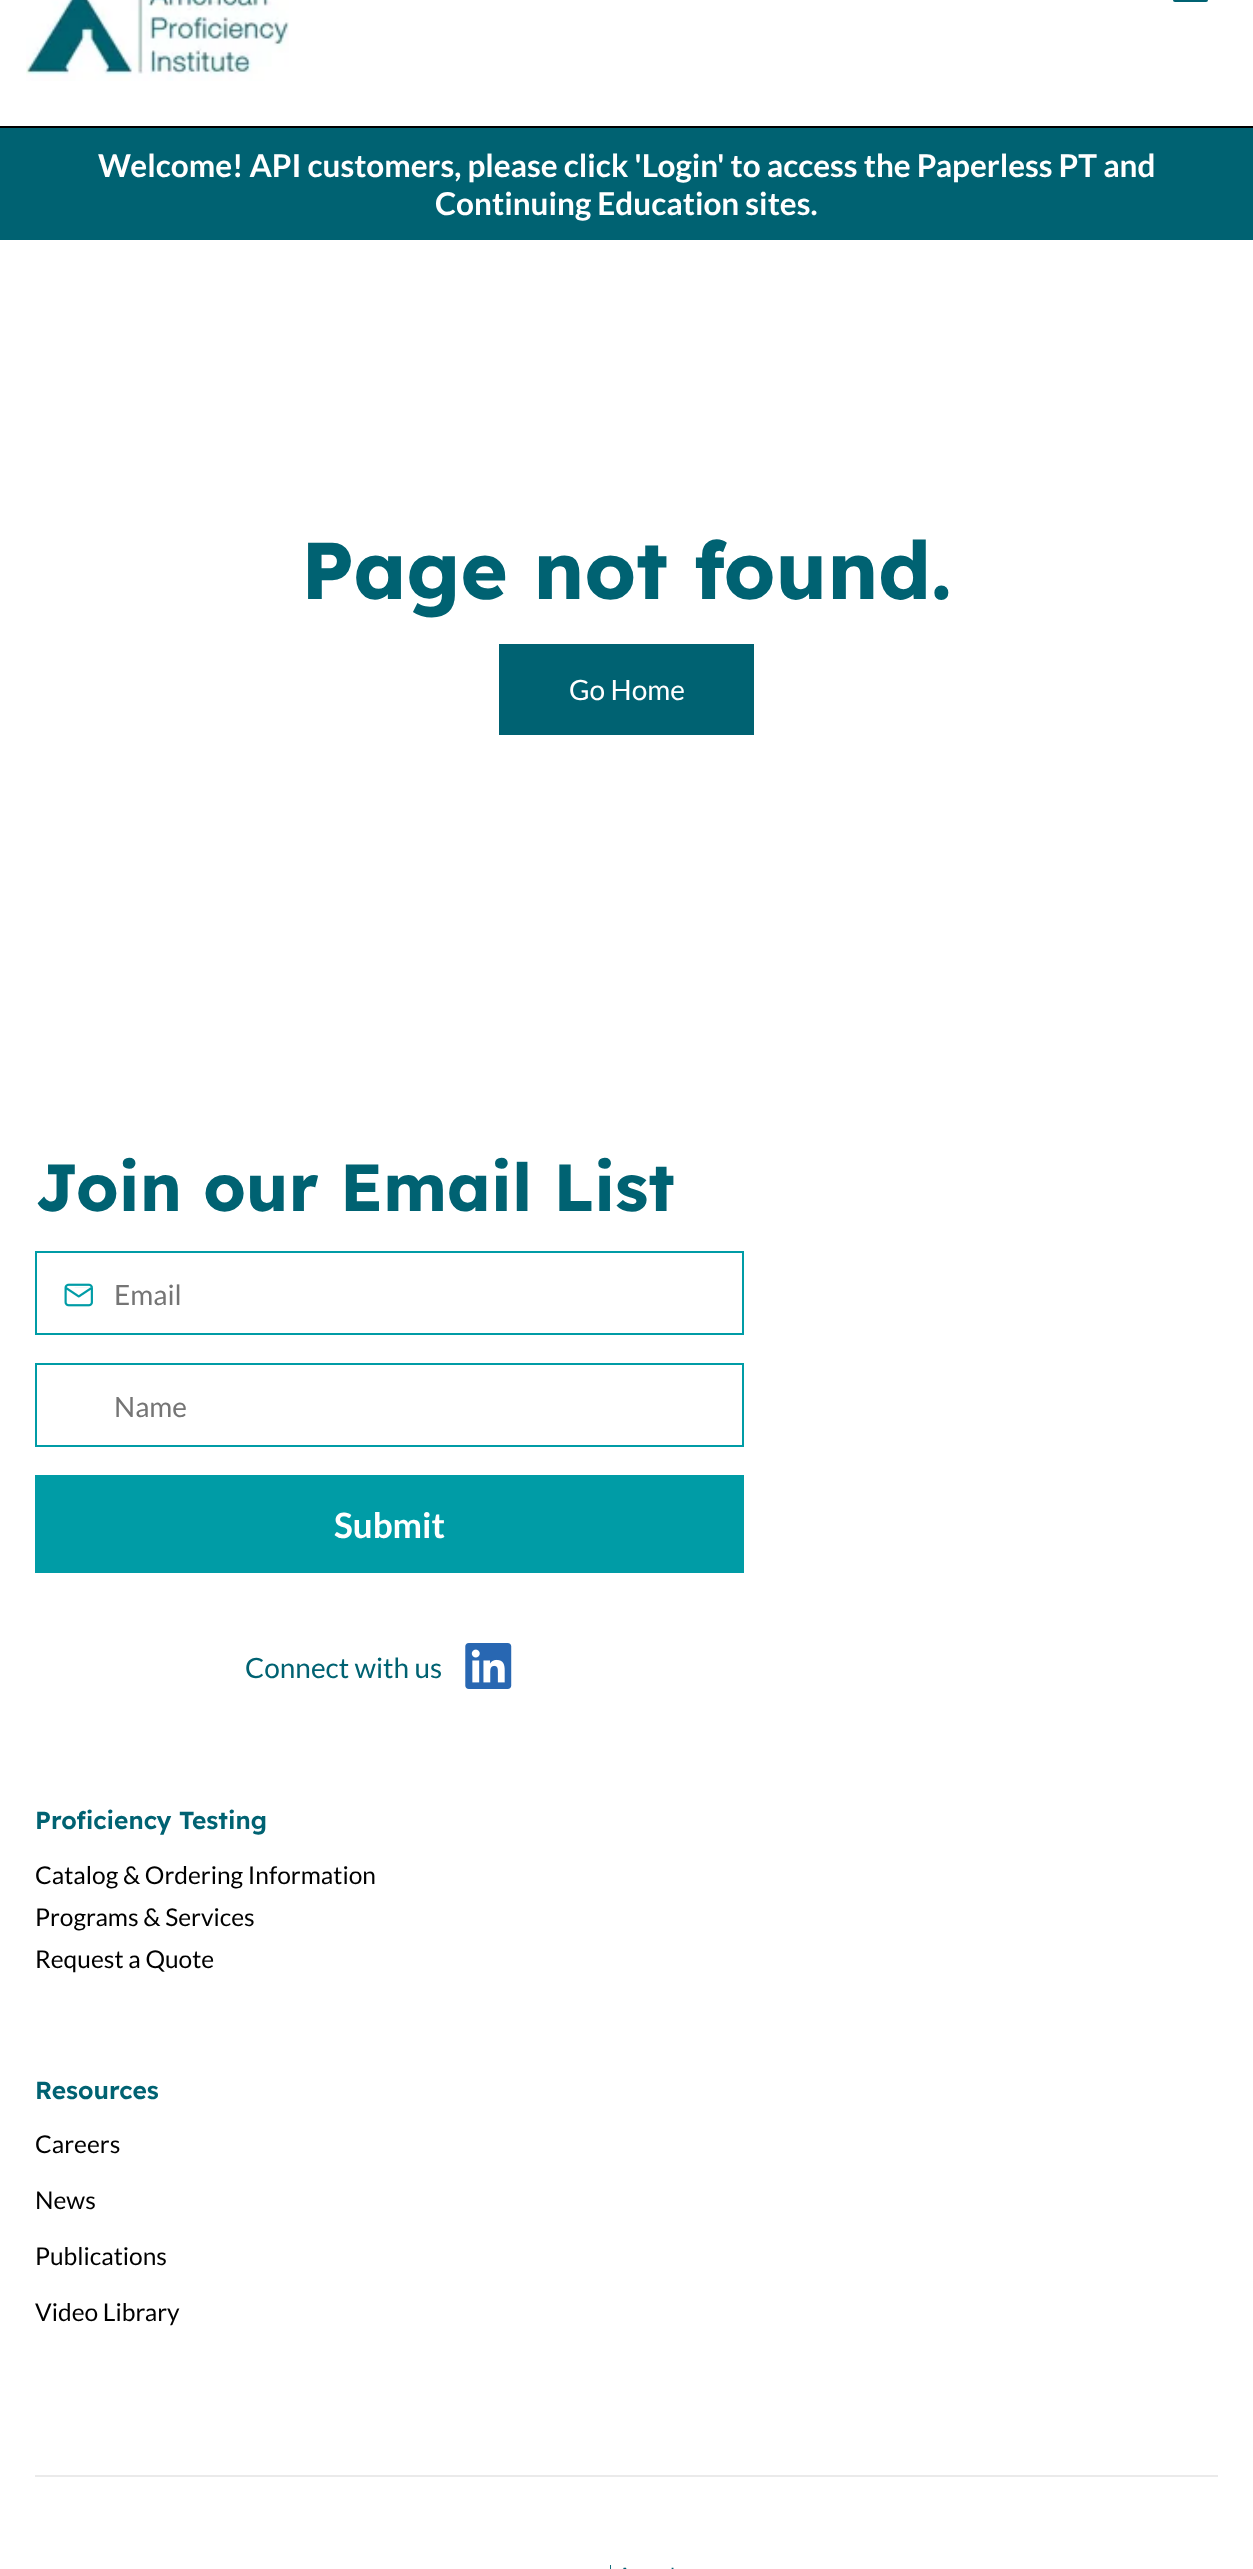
async function draw(canvas) {
	canvas.width = 1253;
	canvas.height = 2569;
	const c = canvas.getContext('2d');
	c.miterLimit = 4;
	c.fontKerning = 'normal';
	async function loadImage(src) {
		const img = new Image();
		img.src = src;
		await img.decode();
		return img;
	}

	c.fillStyle = '#fff';
	c.fillRect(0, 0, 1253, 2569);
	c.fillStyle = '#000';
	c.fillRect(0, 126, 1253, 2);
	c.drawImage(await loadImage('img1.png'), 26, 0, 263, 81);
	c.fillStyle = '#006272';
	c.beginPath();
	c.roundRect(1173, -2, 35, 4, 2);
	c.fill();
	c.fillRect(0, 128, 1253, 112);
	c.font = 'bold 31.5px Lato';
	c.fillStyle = '#fff';
	c.fillText('Welcome! API customers, please click \'Login\' to access the Paperless PT and', 98, 177);
	c.fillText('Continuing Education sites.', 435, 215);
	c.font = 'bold 80.5px Lexend';
	c.fillStyle = '#006272';
	c.fillText('Page not found.', 301, 599);
	c.fillRect(499, 644, 255, 91);
	c.font = '28px Lato';
	c.fillStyle = '#fff';
	c.fillText('Go Home', 569, 700);
	c.fillStyle = '#eaeaea';
	c.fillRect(35, 2475, 1183, 2);
	c.font = 'bold 66.5px Lexend';
	c.fillStyle = '#006272';
	c.fillText('Join our Email List', 35, 1211);
	c.strokeStyle = '#009ca6';
	c.lineWidth = 2;
	c.strokeRect(36, 1252, 707, 82);
	c.drawImage(await loadImage('img2.png'), 64, 1283, 29, 24);
	c.font = '28px Lato';
	c.fillStyle = '#757575';
	c.fillText('Email', 114, 1305);
	c.strokeRect(36, 1364, 707, 82);
	c.fillText('Name', 114, 1417);
	c.fillStyle = '#009ca6';
	c.fillRect(35, 1475, 709, 98);
	c.font = 'bold 35px Lato';
	c.fillStyle = '#fff';
	c.fillText('Submit', 334, 1538);
	c.font = '28px Lato';
	c.fillStyle = '#006272';
	c.fillText('Connect with us', 245, 1678);
	c.drawImage(await loadImage('img3.png'), 465, 1643, 47, 46);
	c.font = '600 24.5px Lexend';
	c.fillText('Proficiency Testing', 35, 1829);
	c.font = '24.5px Lato';
	c.fillStyle = '#000';
	for (const [text, x, y] of [
		['Catalog & Ordering Information', 35, 1884],
		['Programs & Services', 35, 1926],
		['Request a Quote', 35, 1968],
	]) {
		c.fillText(text, x, y);
	}
	c.font = '600 24.5px Lexend';
	c.fillStyle = '#006272';
	c.fillText('Resources', 35, 2099);
	c.font = '24.5px Lato';
	c.fillStyle = '#000';
	for (const [text, x, y] of [
		['Careers', 35, 2153],
		['News', 35, 2209],
		['Publications', 35, 2265],
		['Video Library', 35, 2321],
	]) {
		c.fillText(text, x, y);
	}
	c.drawImage(await loadImage('img4.png'), 610, 2565, 64, 4);
}

draw(document.querySelector('canvas'));
